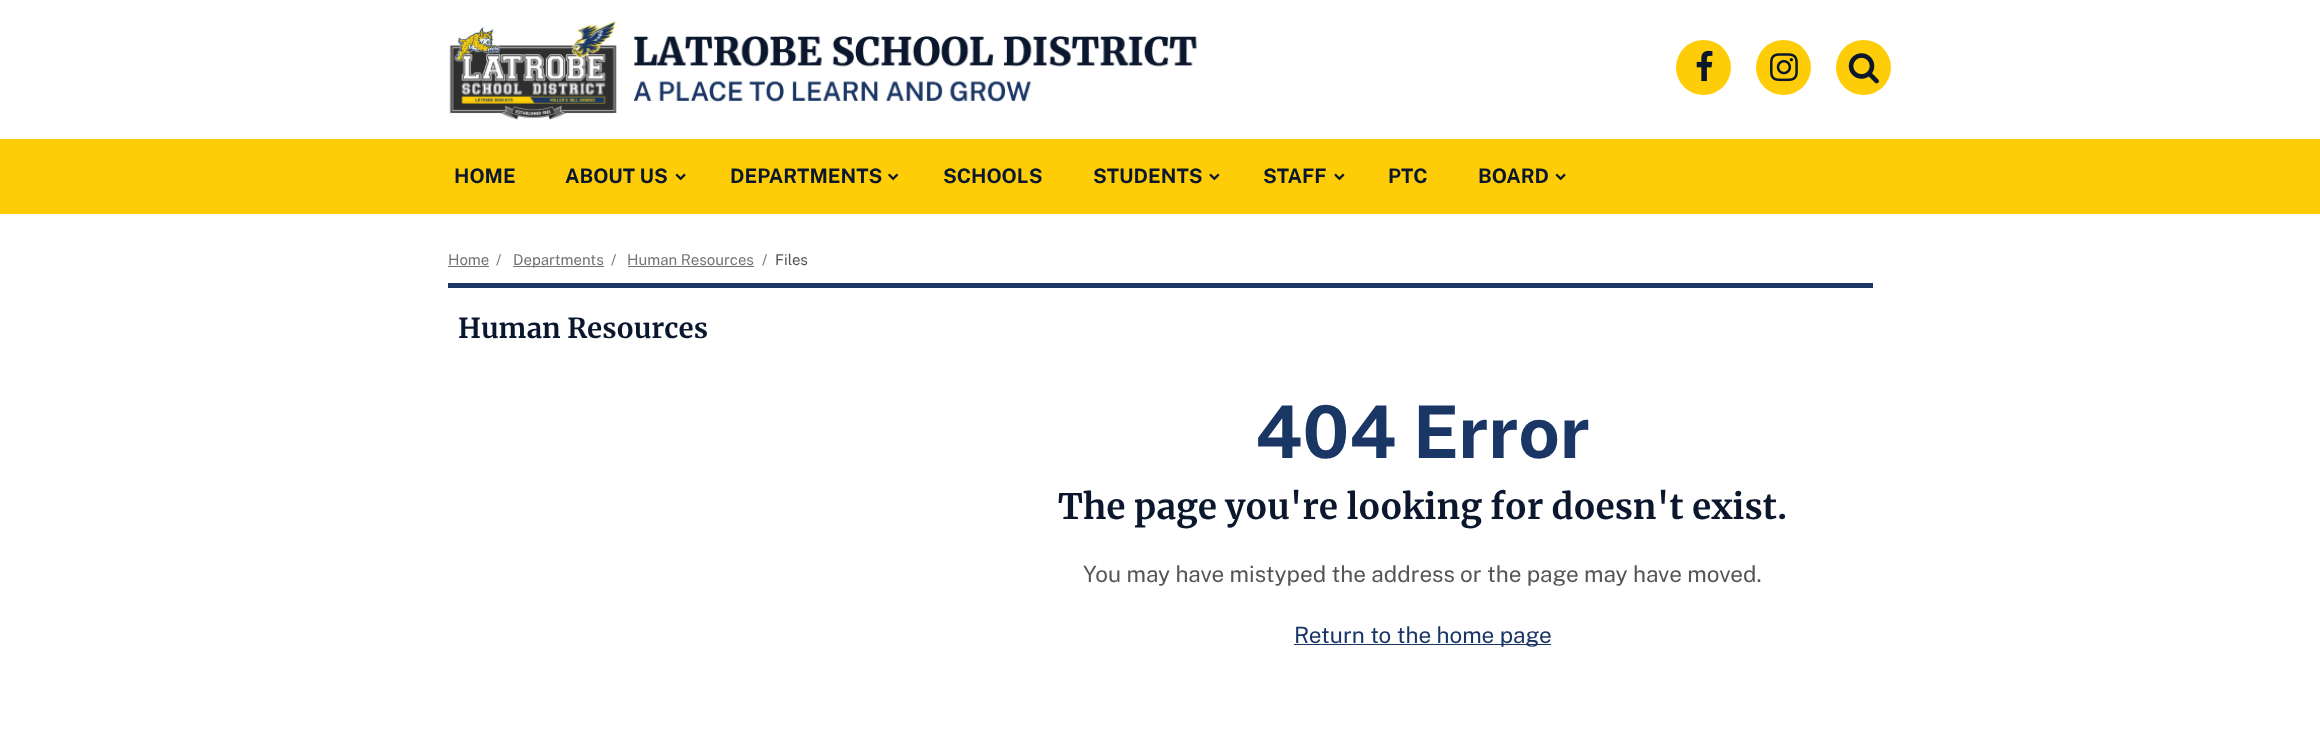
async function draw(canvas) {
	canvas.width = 2320;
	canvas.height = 742;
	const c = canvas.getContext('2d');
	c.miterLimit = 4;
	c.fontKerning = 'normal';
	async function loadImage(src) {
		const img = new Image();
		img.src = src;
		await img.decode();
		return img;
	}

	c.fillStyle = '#fff';
	c.fillRect(0, 0, 2320, 742);
	c.drawImage(await loadImage('img1.png'), 449, 20, 748, 100);
	c.fillStyle = '#fecd07';
	c.beginPath();
	c.arc(1703.5, 67.5, 27.5, 0, 2 * Math.PI);
	c.fill();
	c.drawImage(await loadImage('img2.png'), 1696, 50, 17, 32);
	c.beginPath();
	c.arc(1783.5, 67.5, 27.5, 0, 2 * Math.PI);
	c.fill();
	c.drawImage(await loadImage('img3.png'), 1770, 53, 28, 29);
	c.beginPath();
	c.arc(1863.5, 67.5, 27.5, 0, 2 * Math.PI);
	c.fill();
	c.drawImage(await loadImage('img4.png'), 1848, 53, 31, 31);
	c.fillRect(0, 139, 2320, 75);
	c.font = 'bold 20px Public Sans';
	c.fillStyle = '#0b172d';
	c.fillText('HOME', 454, 183);
	c.fillText('ABOUT US', 565, 183);
	c.drawImage(await loadImage('img5.png'), 675, 173, 11, 8);
	c.fillText('DEPARTMENTS', 730, 183);
	c.drawImage(await loadImage('img6.png'), 888, 173, 11, 8);
	c.fillText('SCHOOLS', 943, 183);
	c.fillText('STUDENTS', 1093, 183);
	c.drawImage(await loadImage('img7.png'), 1209, 173, 11, 8);
	c.fillText('STAFF', 1263, 183);
	c.drawImage(await loadImage('img7.png'), 1334, 173, 11, 8);
	c.fillText('PTC', 1388, 183);
	c.fillText('BOARD', 1478, 183);
	c.drawImage(await loadImage('img5.png'), 1555, 173, 11, 8);
	c.fillStyle = '#1a3665';
	c.fillRect(448, 283, 1425, 5);
	c.font = '15px Public Sans';
	c.fillStyle = '#747474';
	c.fillText('Home', 448, 265);
	c.fillRect(448, 266, 41, 1);
	c.fillText('/', 496, 265);
	c.fillRect(513, 266, 91, 1);
	for (const [text, x, y] of [
		['Departments', 513, 265],
		['/', 611, 265],
		['Human Resources', 627, 265],
	]) {
		c.fillText(text, x, y);
	}
	c.fillRect(628, 266, 126, 1);
	c.fillText('/', 762, 265);
	c.fillStyle = '#555';
	c.fillText('Files', 775, 265);
	c.font = 'bold 27.5px Merriweather';
	c.fillStyle = '#0b172d';
	c.fillText('Human Resources', 458, 338);
	c.font = 'bold 72.5px Public Sans';
	c.fillStyle = '#1a3665';
	c.fillText('404 Error', 1255, 458);
	c.font = 'bold 35px Merriweather';
	c.fillStyle = '#0b172d';
	c.fillText('The page you\'re looking for doesn\'t exist.', 1058, 519);
	c.font = '22.5px Public Sans';
	c.fillStyle = '#555';
	c.fillText('You may have mistyped the address or the page may have moved.', 1083, 582);
	c.fillStyle = '#1a3665';
	c.fillRect(1294, 644, 257, 1);
	c.fillText('Return to the home page', 1294, 643);
}

draw(document.querySelector('canvas'));
